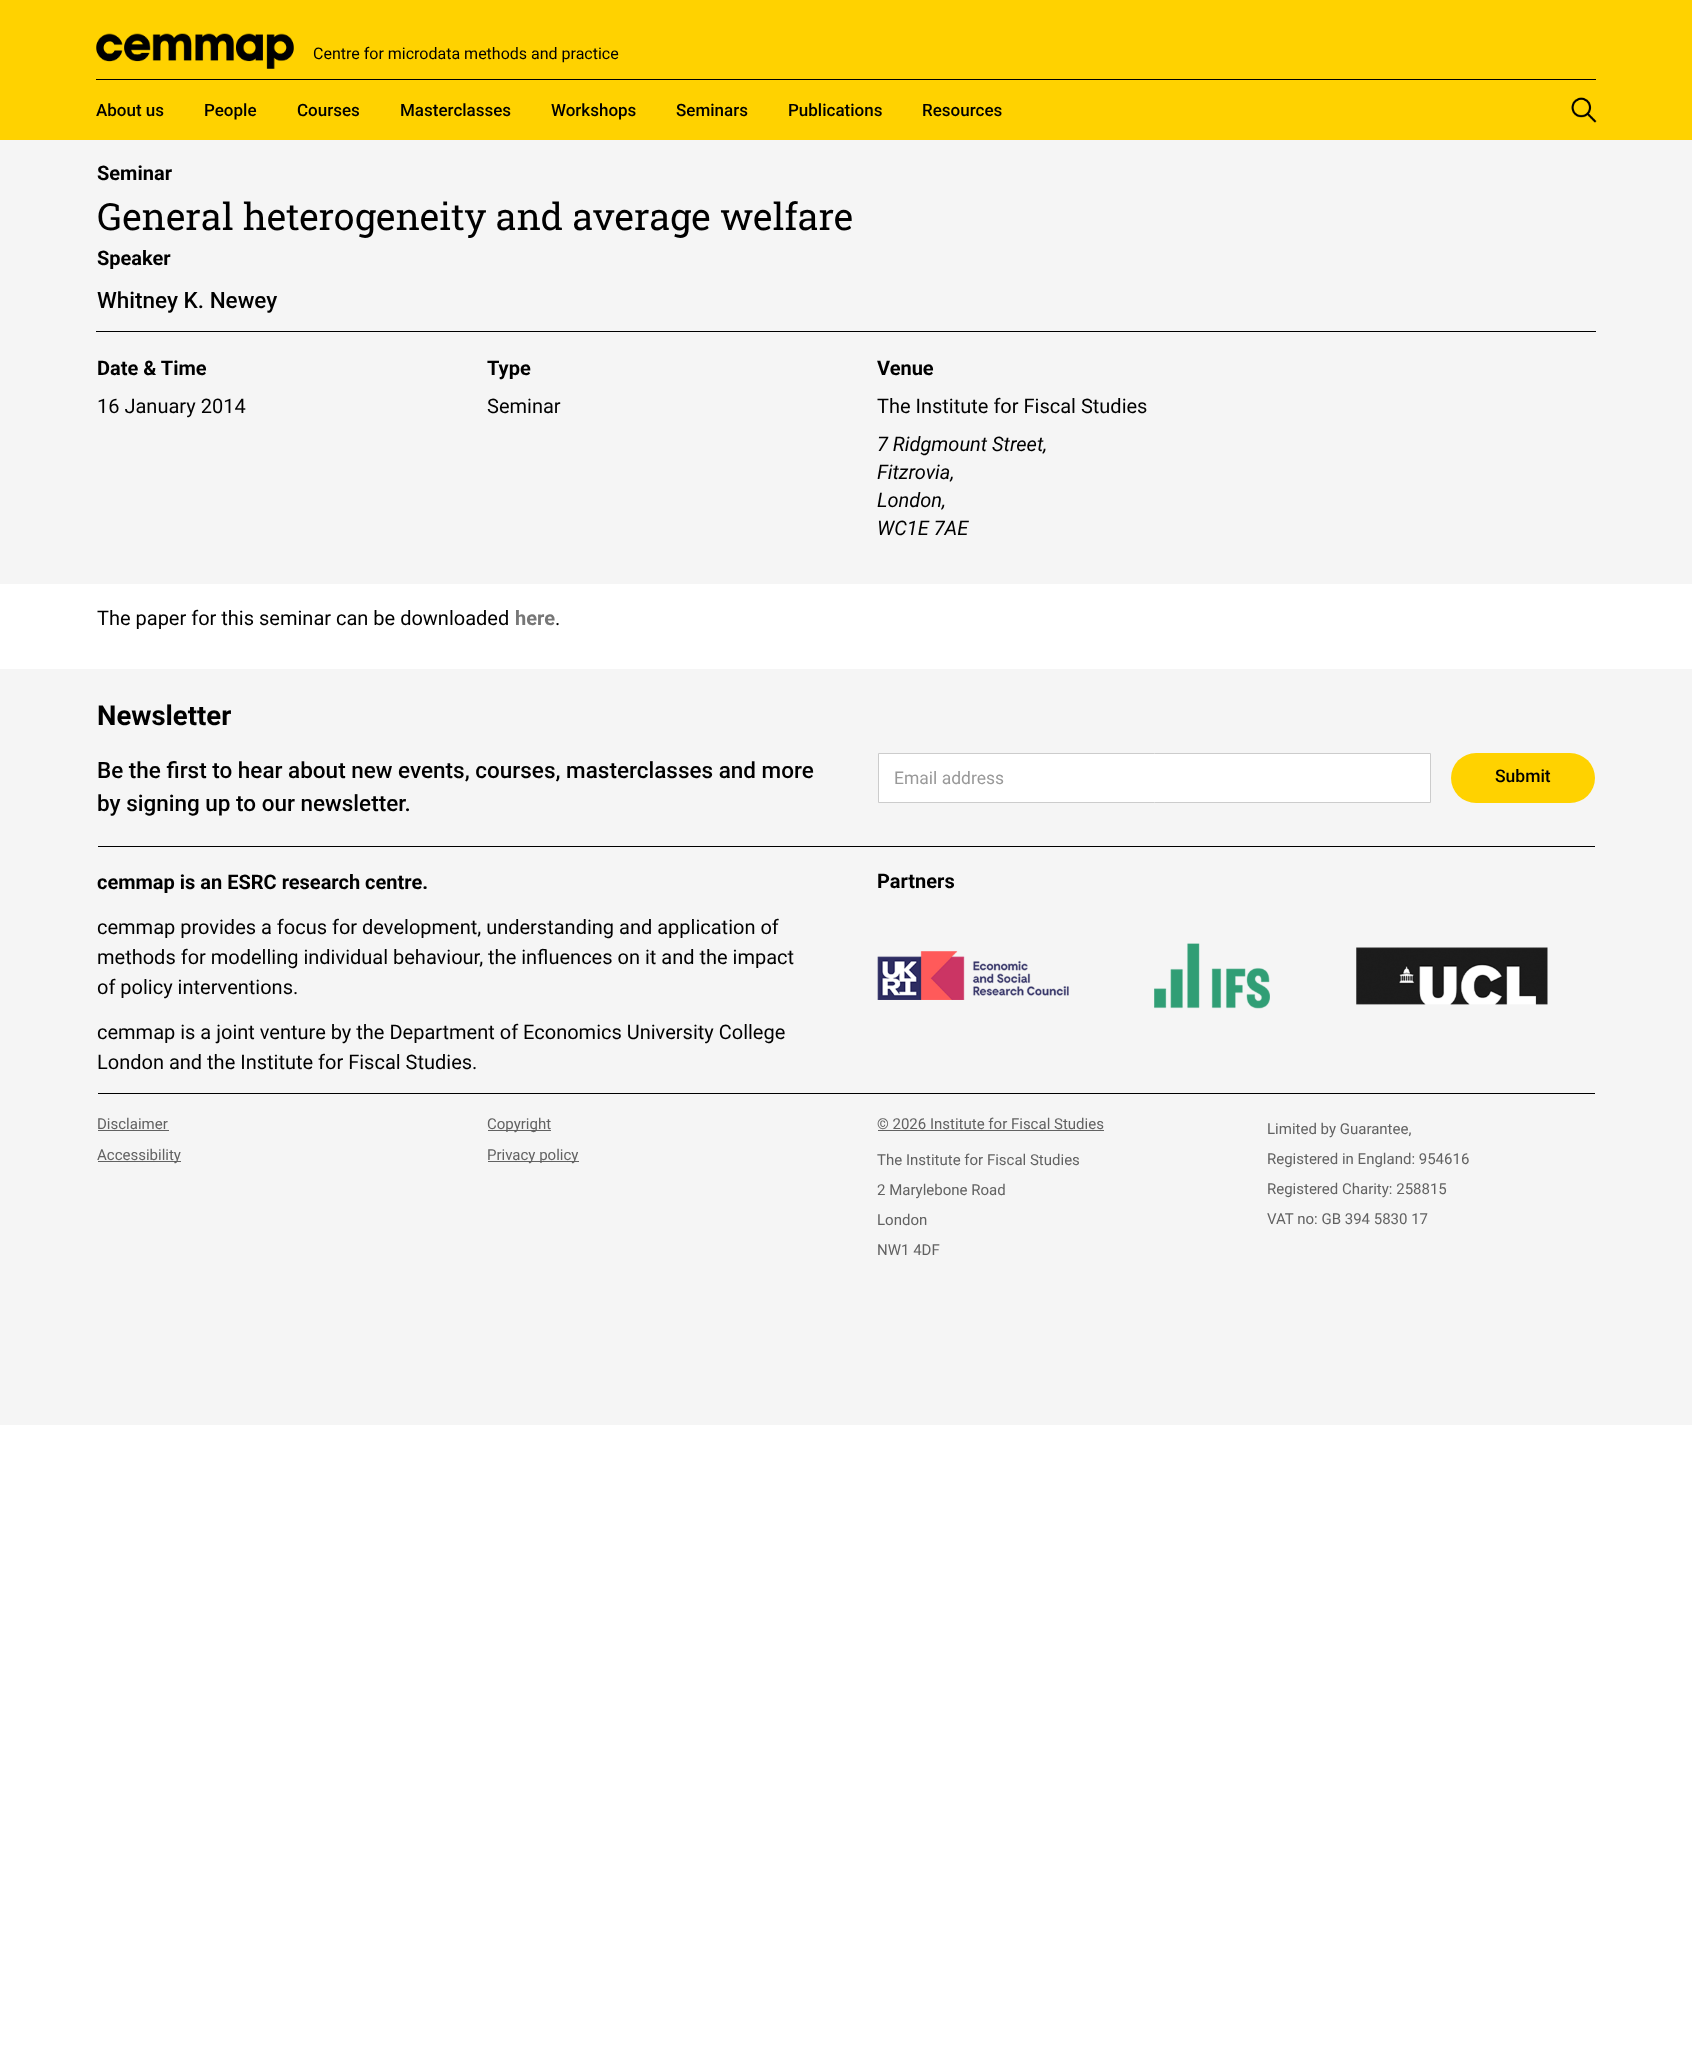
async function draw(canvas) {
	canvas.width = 1692;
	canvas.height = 2061;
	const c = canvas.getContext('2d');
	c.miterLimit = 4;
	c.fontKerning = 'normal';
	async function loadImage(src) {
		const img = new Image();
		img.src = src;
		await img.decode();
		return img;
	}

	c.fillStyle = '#fff';
	c.fillRect(0, 0, 1692, 2061);
	c.fillStyle = '#ffd200';
	c.fillRect(0, 0, 1692, 140);
	c.fillStyle = '#000';
	c.fillRect(96, 79, 1500, 1);
	c.drawImage(await loadImage('img1.png'), 96, 33, 198, 36);
	c.font = '16px Roboto';
	c.fillText('Centre for microdata methods and practice', 313, 59);
	c.font = '500 17px Roboto';
	for (const [text, x, y] of [
		['About us', 96, 116],
		['People', 204, 116],
		['Courses', 297, 116],
		['Masterclasses', 400, 116],
		['Workshops', 551, 116],
		['Seminars', 676, 116],
		['Publications', 788, 116],
		['Resources', 922, 116],
	]) {
		c.fillText(text, x, y);
	}
	c.drawImage(await loadImage('img2.png'), 1571, 97, 26, 26);
	c.fillStyle = '#f5f5f5';
	c.fillRect(0, 140, 1692, 444);
	c.font = 'bold 20px Roboto';
	c.fillStyle = '#000';
	c.fillText('Seminar', 97, 180);
	c.font = '37.5px Roboto Slab';
	c.fillText('General heterogeneity and average welfare', 97, 230);
	c.font = 'bold 20px Roboto';
	c.fillText('Speaker', 97, 265);
	c.font = '500 22.5px Roboto';
	c.fillText('Whitney K. Newey', 97, 308);
	c.fillRect(96, 331, 1500, 1);
	c.font = 'bold 20px Roboto';
	c.fillText('Date & Time', 97, 375);
	c.font = '20px Roboto';
	c.fillText('16 January 2014', 97, 413);
	c.font = 'bold 20px Roboto';
	c.fillText('Type', 487, 375);
	c.font = '20px Roboto';
	c.fillText('Seminar', 487, 413);
	c.font = 'bold 20px Roboto';
	c.fillText('Venue', 877, 375);
	c.font = '20px Roboto';
	c.fillText('The Institute for Fiscal Studies', 877, 413);
	c.font = 'italic 20px Roboto';
	for (const [text, x, y] of [
		['7 Ridgmount Street,', 877, 451],
		['Fitzrovia,', 877, 479],
		['London,', 877, 507],
		['WC1E 7AE', 877, 535],
	]) {
		c.fillText(text, x, y);
	}
	c.font = '20px Roboto';
	c.fillText('The paper for this seminar can be downloaded', 97, 625);
	c.font = 'bold 20px Roboto';
	c.fillStyle = '#777';
	c.fillText('here', 515, 625);
	c.font = '20px Roboto';
	c.fillStyle = '#000';
	c.fillText('.', 555, 625);
	c.fillStyle = '#f5f5f5';
	c.fillRect(0, 669, 1692, 756);
	c.font = 'bold 27.5px Roboto';
	c.fillStyle = '#000';
	c.fillText('Newsletter', 97, 725);
	c.font = '500 22.5px Roboto';
	c.fillText('Be the first to hear about new events, courses, masterclasses and more', 97, 778);
	c.fillText('by signing up to our newsletter.', 97, 811);
	c.fillStyle = '#fff';
	c.beginPath();
	c.rect(878.5, 753.5, 552, 49);
	c.fill();
	c.strokeStyle = '#ccc';
	c.stroke();
	c.font = '17.5px Roboto';
	c.fillStyle = '#999';
	c.fillText('Email address', 894, 784);
	c.fillStyle = '#ffd200';
	c.beginPath();
	c.roundRect(1451, 753, 144, 50, 25);
	c.fill();
	c.font = '500 17.5px Roboto';
	c.fillStyle = '#000';
	c.fillText('Submit', 1495, 782);
	c.fillRect(98, 846, 1497, 1);
	c.font = 'bold 20px Roboto';
	c.fillText('cemmap is an ESRC research centre.', 97, 889);
	c.font = '20px Roboto';
	for (const [text, x, y] of [
		['cemmap provides a focus for development, understanding and application of', 97, 934],
		['methods for modelling individual behaviour, the influences on it and the impact', 97, 964],
		['of policy interventions.', 97, 994],
		['cemmap is a joint venture by the Department of Economics University College', 97, 1039],
		['London and the Institute for Fiscal Studies.', 97, 1069],
	]) {
		c.fillText(text, x, y);
	}
	c.font = 'bold 20px Roboto';
	c.fillText('Partners', 877, 888);
	c.drawImage(await loadImage('img3.png'), 877, 951, 192, 49);
	c.drawImage(await loadImage('img4.png'), 1154, 943, 116, 66);
	c.drawImage(await loadImage('img5.png'), 1356, 947, 192, 58);
	c.fillRect(98, 1093, 1497, 1);
	c.font = '15px Roboto';
	c.fillStyle = '#626262';
	c.fillText('Disclaimer', 97, 1129);
	c.fillRect(98, 1130, 71, 1);
	c.fillRect(98, 1161, 83, 1);
	c.fillText('Accessibility', 97, 1160);
	c.fillRect(488, 1130, 63, 1);
	c.fillText('Copyright', 487, 1129);
	c.fillRect(488, 1161, 91, 1);
	c.fillText('Privacy policy', 487, 1160);
	c.fillText('© 2026 Institute for Fiscal Studies', 877, 1129);
	c.fillRect(878, 1130, 226, 1);
	for (const [text, x, y] of [
		['The Institute for Fiscal Studies', 877, 1165],
		['2 Marylebone Road', 877, 1195],
		['London', 877, 1225],
		['NW1 4DF', 877, 1255],
		['Limited by Guarantee,', 1267, 1134],
		['Registered in England: 954616', 1267, 1164],
		['Registered Charity: 258815', 1267, 1194],
		['VAT no: GB 394 5830 17', 1267, 1224],
	]) {
		c.fillText(text, x, y);
	}
}

draw(document.querySelector('canvas'));
